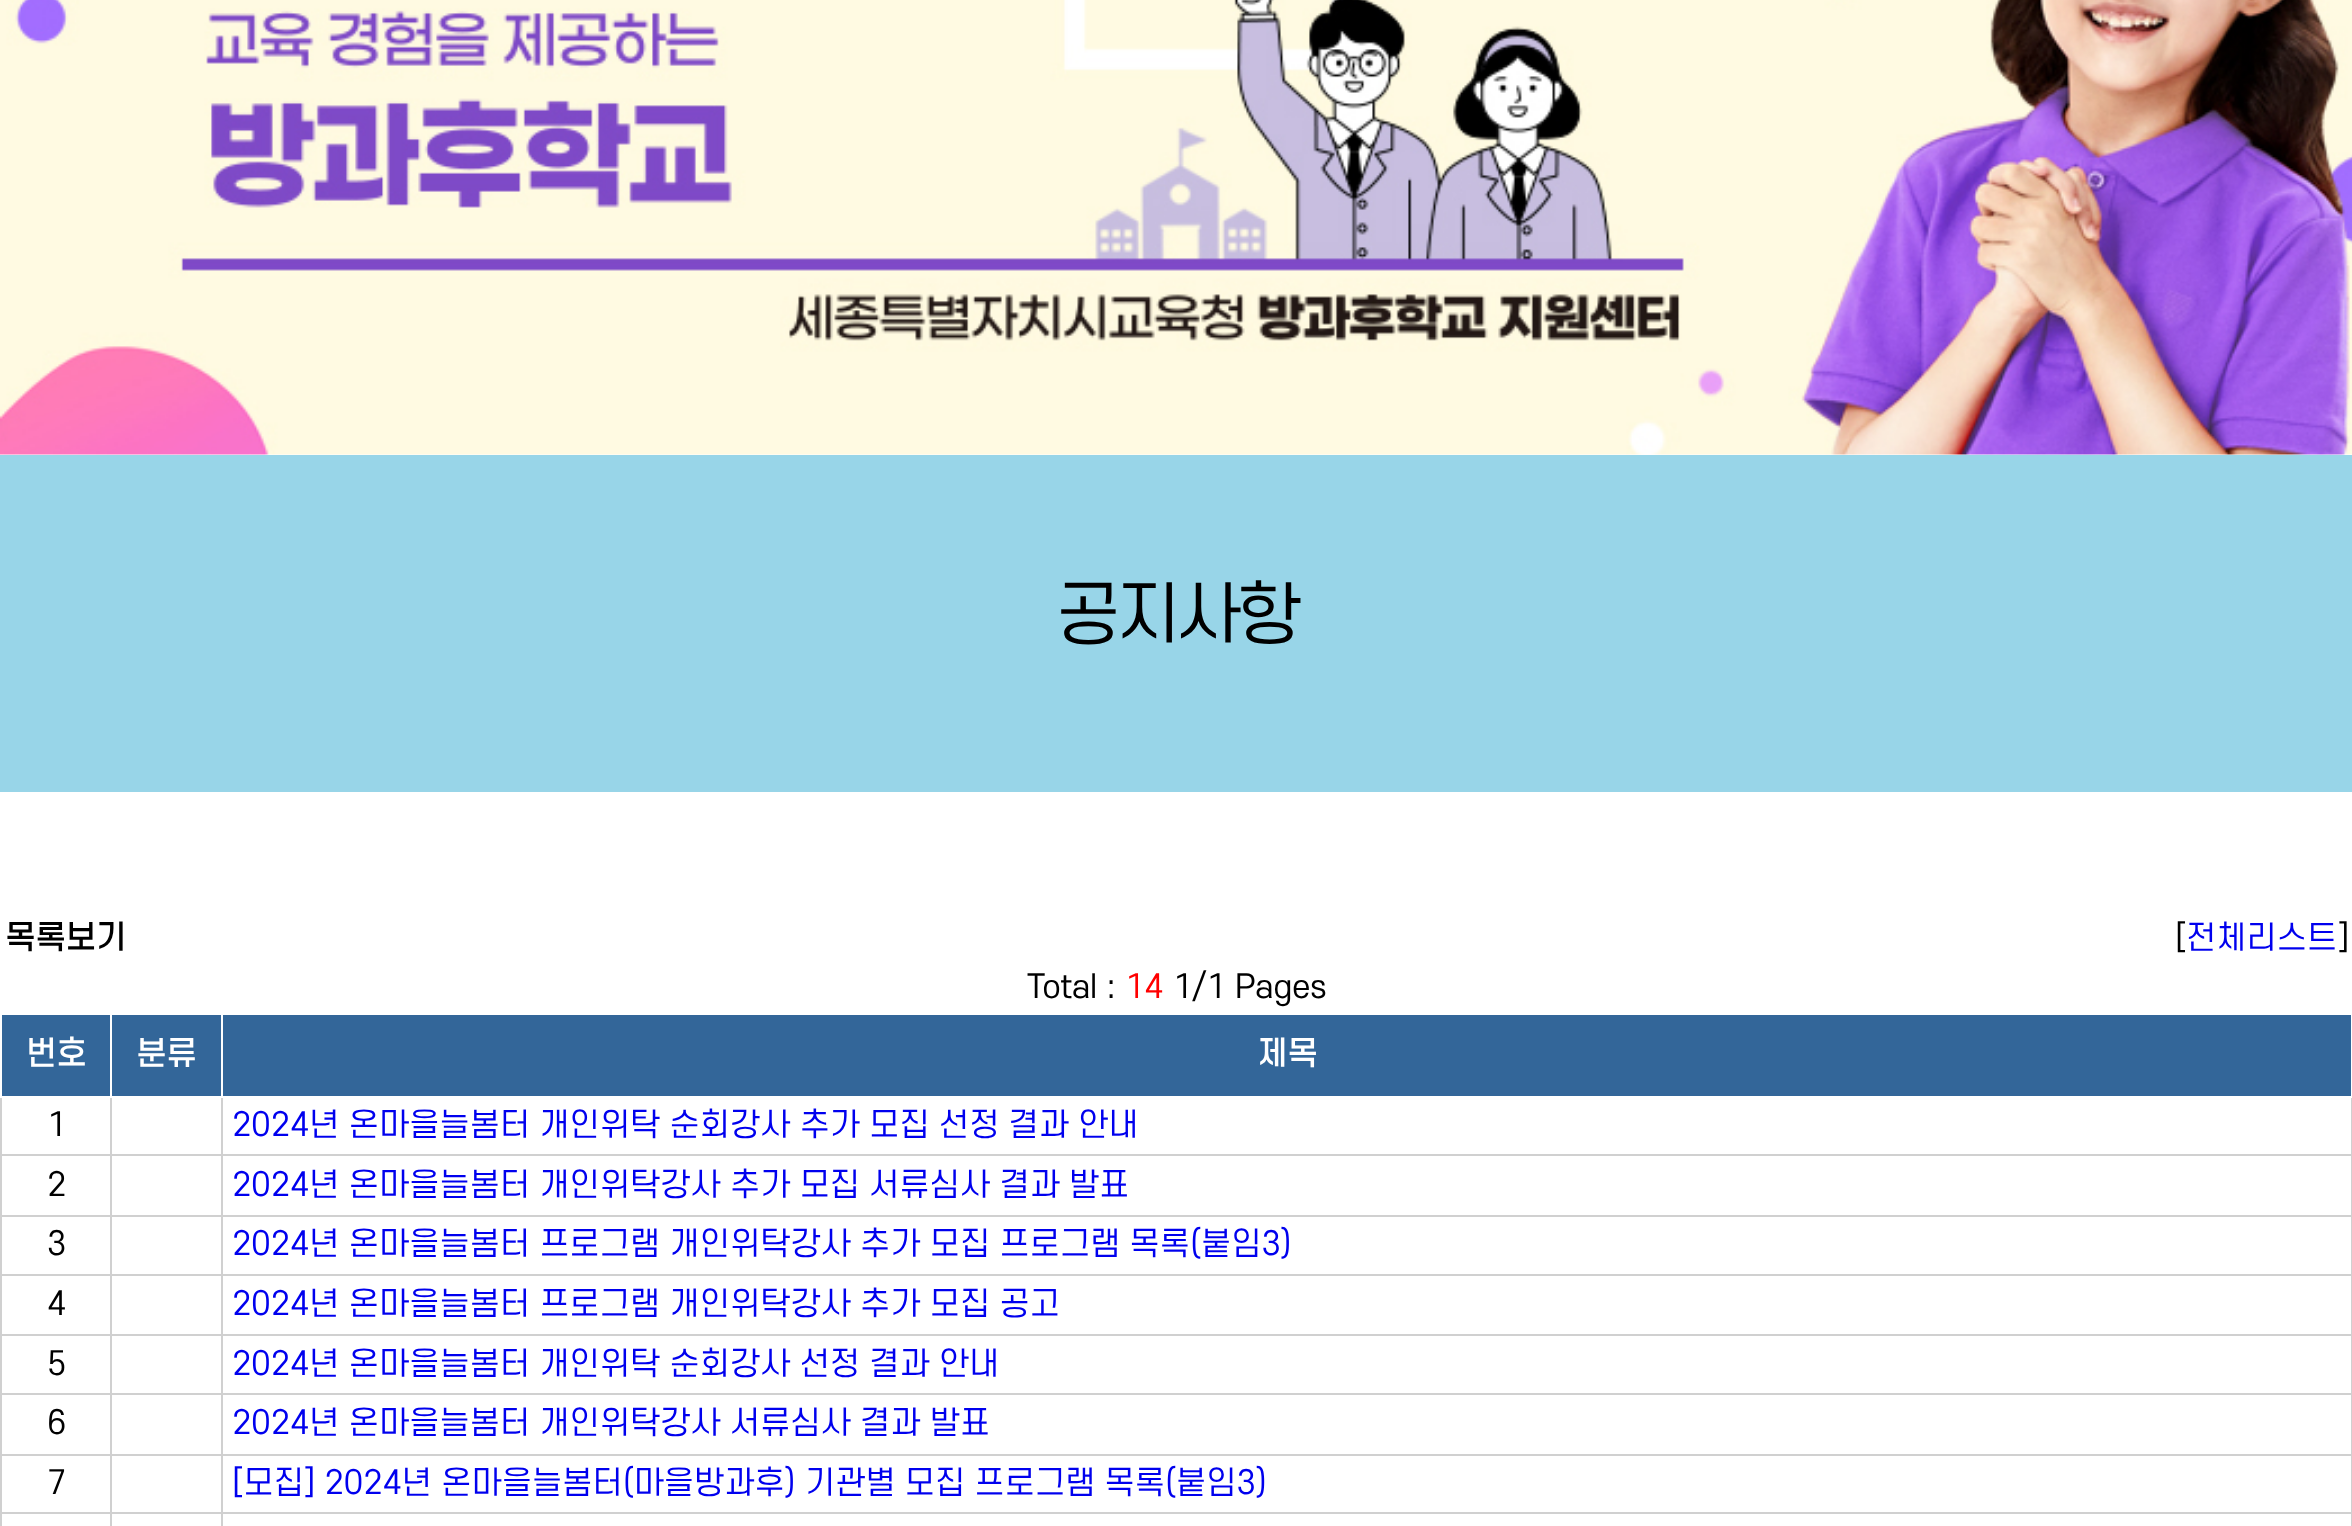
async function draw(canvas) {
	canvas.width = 2352;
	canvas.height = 1526;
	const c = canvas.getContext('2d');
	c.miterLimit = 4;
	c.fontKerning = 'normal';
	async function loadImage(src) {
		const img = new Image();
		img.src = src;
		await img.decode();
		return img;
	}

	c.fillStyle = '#fff';
	c.fillRect(0, 0, 2352, 1526);
	c.drawImage(await loadImage('img1.png'), 0, 0, 2352, 455);
	c.fillStyle = '#98d5e8';
	c.fillRect(0, 455, 2352, 337);
	c.letterSpacing = '-4.5px';
	c.font = '67.5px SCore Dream';
	c.fillStyle = '#000';
	c.fillText('공지사항', 1056, 639);
	c.letterSpacing = '0px';
	c.font = 'bold 31.5px SCore Dream';
	c.fillText('목록보기', 5, 949);
	c.font = '31.5px SCore Dream';
	c.fillText('[', 2175, 949);
	c.fillStyle = '#00e';
	c.fillText('전체리스트', 2186, 949);
	c.fillStyle = '#000';
	c.fillText(']', 2338, 949);
	c.fillText('Total :', 1027, 998);
	c.fillStyle = '#f00';
	c.fillText('14', 1125, 998);
	c.fillStyle = '#000';
	c.fillText('1/1 Pages', 1173, 998);
	for (const [x, y, w, h, color] of [
		[2, 1015, 2349, 81, '#369'],
		[221, 1154, 2131, 2, '#d0d0d0'],
		[221, 1215, 2131, 2, '#d0d0d0'],
		[221, 1274, 2131, 2, '#d0d0d0'],
		[221, 1334, 2131, 2, '#d0d0d0'],
		[221, 1393, 2131, 2, '#d0d0d0'],
		[221, 1454, 2131, 2, '#d0d0d0'],
		[221, 1512, 2131, 2, '#d0d0d0'],
		[221, 1512, 2, 14, '#d0d0d0'],
		[110, 1512, 113, 2, '#d0d0d0'],
		[221, 1454, 2, 60, '#d0d0d0'],
		[110, 1454, 113, 2, '#d0d0d0'],
		[221, 1393, 2, 63, '#d0d0d0'],
		[110, 1393, 113, 2, '#d0d0d0'],
		[221, 1334, 2, 61, '#d0d0d0'],
		[110, 1334, 113, 2, '#d0d0d0'],
		[221, 1274, 2, 63, '#d0d0d0'],
		[110, 1274, 113, 2, '#d0d0d0'],
		[221, 1215, 2, 61, '#d0d0d0'],
		[110, 1215, 113, 2, '#d0d0d0'],
		[221, 1154, 2, 63, '#d0d0d0'],
		[110, 1154, 113, 2, '#d0d0d0'],
		[110, 1512, 2, 14, '#d0d0d0'],
		[0, 1512, 113, 2, '#d0d0d0'],
		[110, 1454, 2, 60, '#d0d0d0'],
		[0, 1454, 113, 2, '#d0d0d0'],
		[110, 1393, 2, 63, '#d0d0d0'],
		[0, 1393, 113, 2, '#d0d0d0'],
		[110, 1334, 2, 61, '#d0d0d0'],
		[0, 1334, 113, 2, '#d0d0d0'],
		[110, 1274, 2, 63, '#d0d0d0'],
		[0, 1274, 113, 2, '#d0d0d0'],
		[110, 1215, 2, 61, '#d0d0d0'],
		[0, 1215, 113, 2, '#d0d0d0'],
		[110, 1154, 2, 63, '#d0d0d0'],
		[0, 1154, 113, 2, '#d0d0d0'],
		[0, 1512, 2, 14, '#d0d0d0'],
		[0, 1454, 2, 60, '#d0d0d0'],
		[0, 1393, 2, 63, '#d0d0d0'],
		[0, 1334, 2, 61, '#d0d0d0'],
		[0, 1274, 2, 63, '#d0d0d0'],
		[0, 1215, 2, 61, '#d0d0d0'],
		[0, 1096, 2, 121, '#d0d0d0'],
		[0, 1096, 2, 2, '#fff'],
	]) {
		c.fillStyle = color;
		c.fillRect(x, y, w, h);
	}
	c.font = 'bold 31.5px SCore Dream';
	c.fillText('번호', 26, 1065);
	c.fillStyle = '#d0d0d0';
	c.fillRect(110, 1096, 2, 61);
	c.fillStyle = '#fff';
	c.fillRect(110, 1013, 2, 85);
	c.fillText('분류', 136, 1065);
	for (const [x, y, w, h, color] of [
		[2351, 1512, 1, 14, '#d0d0d0'],
		[2351, 1454, 1, 60, '#d0d0d0'],
		[2351, 1393, 1, 63, '#d0d0d0'],
		[2351, 1334, 1, 61, '#d0d0d0'],
		[2351, 1274, 1, 63, '#d0d0d0'],
		[2351, 1215, 1, 61, '#d0d0d0'],
		[2351, 1096, 1, 121, '#d0d0d0'],
		[2351, 1096, 1, 2, '#fff'],
		[221, 1096, 2, 61, '#d0d0d0'],
		[221, 1013, 2, 85, '#fff'],
	]) {
		c.fillStyle = color;
		c.fillRect(x, y, w, h);
	}
	c.fillText('제목', 1257, 1065);
	c.font = '31.5px SCore Dream';
	c.fillStyle = '#000';
	c.fillText('1', 47, 1136);
	c.fillStyle = '#00e';
	c.fillText('2024년 온마을늘봄터 개인위탁 순회강사 추가 모집 선정 결과 안내', 232, 1136);
	c.fillStyle = '#000';
	c.fillText('2', 47, 1196);
	c.fillStyle = '#00e';
	c.fillText('2024년 온마을늘봄터 개인위탁강사 추가 모집 서류심사 결과 발표', 232, 1196);
	c.fillStyle = '#000';
	c.fillText('3', 47, 1255);
	c.fillStyle = '#00e';
	c.fillText('2024년 온마을늘봄터 프로그램 개인위탁강사 추가 모집 프로그램 목록(붙임3)', 232, 1255);
	c.fillStyle = '#000';
	c.fillText('4', 47, 1315);
	c.fillStyle = '#00e';
	c.fillText('2024년 온마을늘봄터 프로그램 개인위탁강사 추가 모집 공고', 232, 1315);
	c.fillStyle = '#000';
	c.fillText('5', 47, 1375);
	c.fillStyle = '#00e';
	c.fillText('2024년 온마을늘봄터 개인위탁 순회강사 선정 결과 안내', 232, 1375);
	c.fillStyle = '#000';
	c.fillText('6', 47, 1434);
	c.fillStyle = '#00e';
	c.fillText('2024년 온마을늘봄터 개인위탁강사 서류심사 결과 발표', 232, 1434);
	c.fillStyle = '#000';
	c.fillText('7', 47, 1494);
	c.fillStyle = '#00e';
	c.fillText('[모집] 2024년 온마을늘봄터(마을방과후) 기관별 모집 프로그램 목록(붙임3)', 232, 1494);
}

draw(document.querySelector('canvas'));
